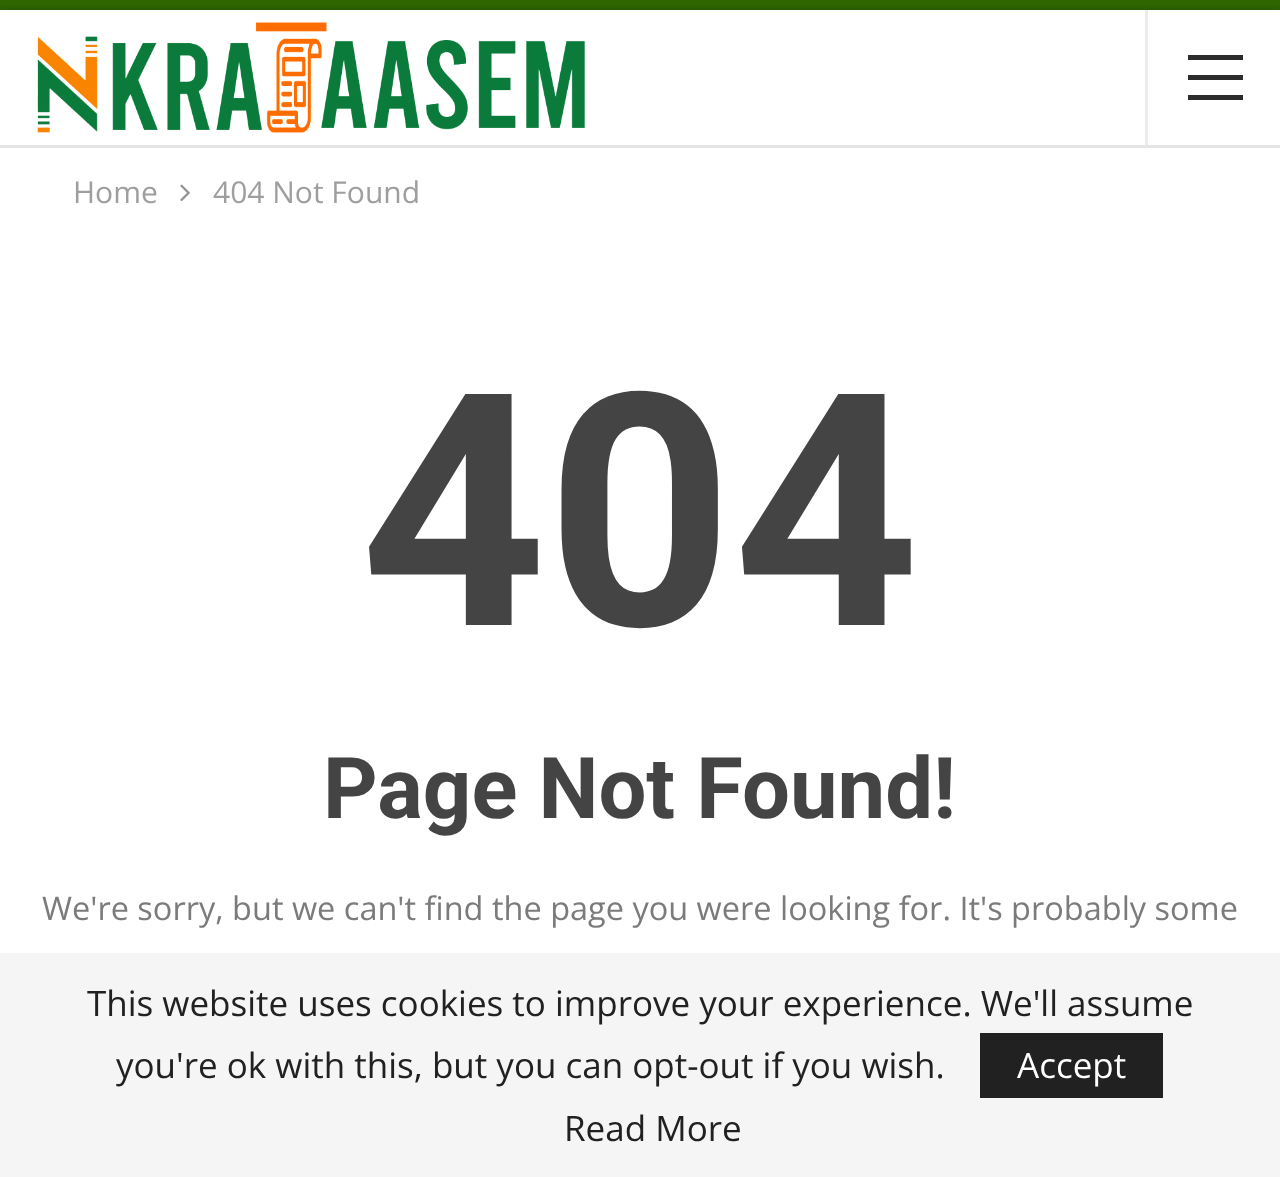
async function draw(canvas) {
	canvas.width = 1280;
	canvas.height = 1177;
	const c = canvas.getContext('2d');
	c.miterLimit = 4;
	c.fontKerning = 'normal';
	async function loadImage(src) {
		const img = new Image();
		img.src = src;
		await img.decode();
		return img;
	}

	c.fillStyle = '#2f6600';
	c.fillRect(0, 0, 1280, 1177);
	c.fillStyle = '#00000045';
	c.filter = 'blur(2.5px)';
	c.beginPath();
	c.rect(0, 10, 1280, 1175);
	c.fill();
	c.filter = 'none';
	c.fillStyle = '#fff';
	c.fillRect(0, 10, 1280, 943);
	c.fillStyle = '#e5e5e5';
	c.fillRect(0, 145, 1280, 3);
	c.drawImage(await loadImage('img1.png'), 37, 22, 548, 111);
	for (const [x, y, w, h, color] of [
		[1145, 10, 3, 135, '#ededed'],
		[1188, 75, 55, 5, '#2c2c2c'],
		[1188, 55, 55, 5, '#2c2c2c'],
		[1188, 95, 55, 5, '#2c2c2c'],
	]) {
		c.fillStyle = color;
		c.fillRect(x, y, w, h);
	}
	c.font = '30px Open Sans';
	c.fillStyle = '#9e9e9e';
	c.fillText('Home', 73, 203);
	c.drawImage(await loadImage('img2.png'), 180, 184, 10, 18);
	c.fillText('404 Not Found', 213, 203);
	c.font = 'bold 325px Roboto';
	c.fillStyle = '#444';
	c.fillText('404', 360, 625);
	c.font = 'bold 85px Roboto';
	c.fillText('Page Not Found!', 323, 818);
	c.font = '32.5px Open Sans';
	c.fillStyle = '#7b7b7b';
	c.fillText('We\'re sorry, but we can\'t find the page you were looking for. It\'s probably some', 42, 920);
	c.fillStyle = '#f5f5f5';
	c.fillRect(0, 953, 1280, 224);
	c.font = '35px Open Sans';
	c.fillStyle = '#212121';
	c.fillText('This website uses cookies to improve your experience. We\'ll assume', 87, 1016);
	c.fillText('you\'re ok with this, but you can opt-out if you wish.', 116, 1078);
	c.fillRect(980, 1033, 183, 65);
	c.fillStyle = '#fff';
	c.fillText('Accept', 1017, 1078);
	c.fillStyle = '#212121';
	c.fillText('Read More', 564, 1141);
}

draw(document.querySelector('canvas'));
